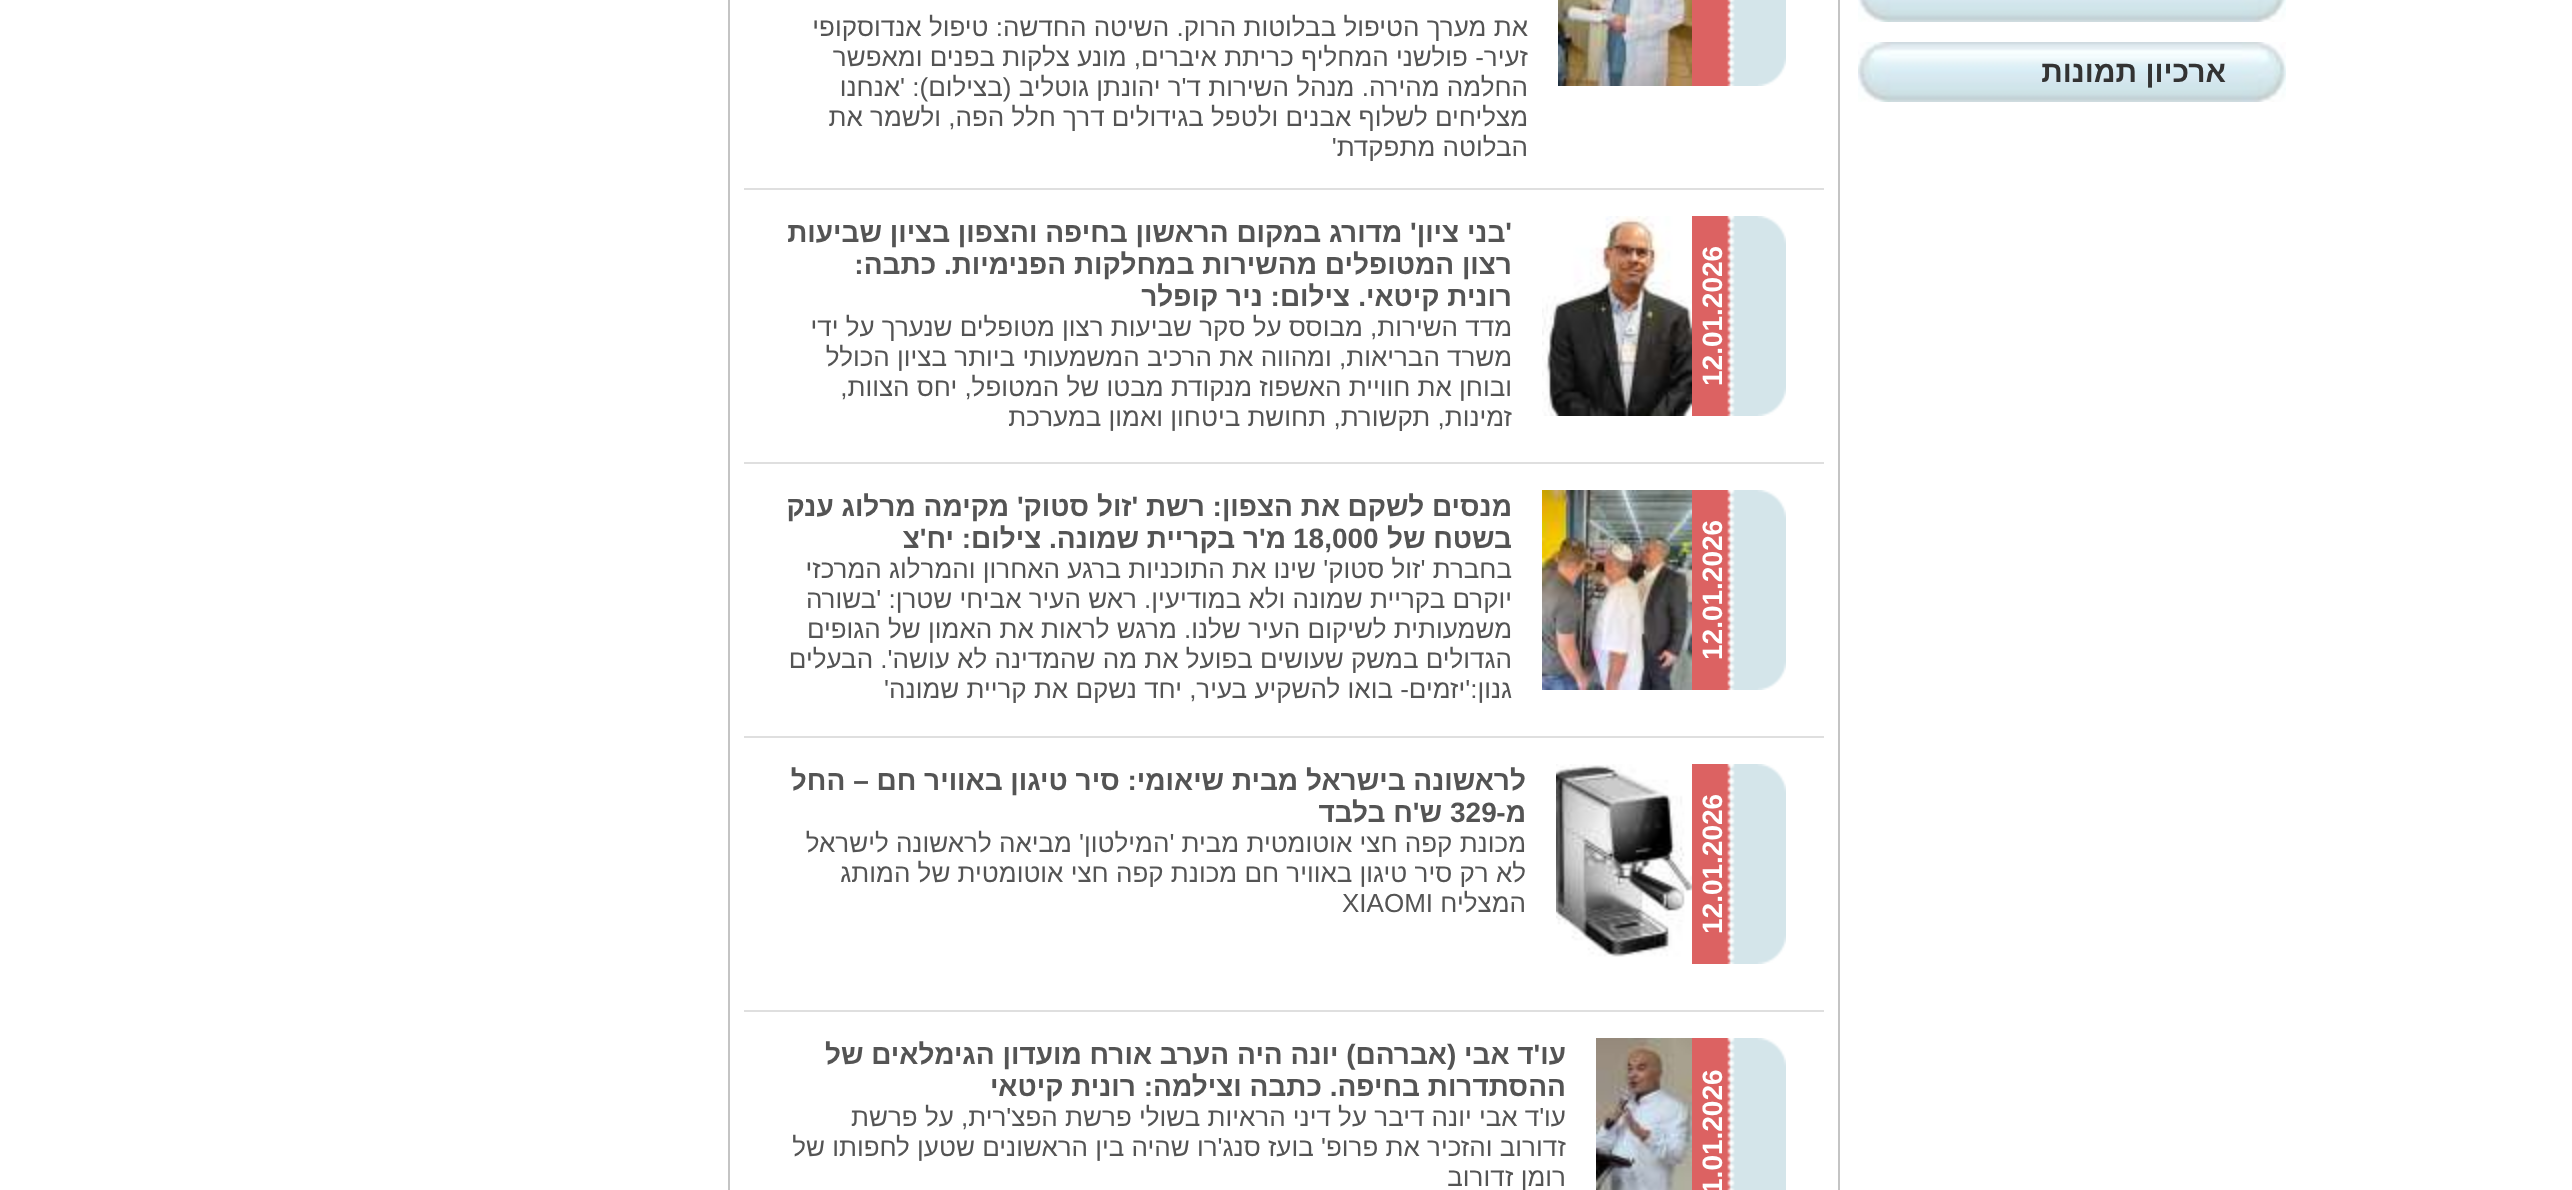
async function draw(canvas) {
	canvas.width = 2572;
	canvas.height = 1190;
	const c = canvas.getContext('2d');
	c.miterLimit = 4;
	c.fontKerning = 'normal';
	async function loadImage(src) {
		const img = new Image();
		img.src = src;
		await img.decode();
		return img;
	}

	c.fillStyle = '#fff';
	c.fillRect(0, 0, 2572, 1190);
	c.drawImage(await loadImage('img1.png'), 1858, 0, 428, 22);
	c.drawImage(await loadImage('img2.png'), 1858, 42, 428, 60);
	c.direction = 'rtl';
	c.font = 'bold 30px Liberation Sans';
	c.fillStyle = '#333';
	c.fillText('ארכיון תמונות', 2226, 82);
	c.fillStyle = '#c4c4c4';
	c.fillRect(1838, 0, 2, 1190);
	c.fillRect(728, 0, 2, 1190);
	c.drawImage(await loadImage('img3.png'), 1692, 0, 94, 86);
	c.drawImage(await loadImage('img4.png'), 1558, 0, 134, 86);
	c.font = '26px Liberation Sans';
	c.fillStyle = '#545454';
	for (const [text, x, y] of [
		['את מערך הטיפול בבלוטות הרוק. השיטה החדשה: טיפול אנדוסקופי', 1528, 36],
		['זעיר- פולשני המחליף כריתת איברים, מונע צלקות בפנים ומאפשר', 1528, 66],
		['החלמה מהירה. מנהל השירות ד\'ר יהונתן גוטליב (בצילום): \'אנחנו', 1528, 96],
		['מצליחים לשלוף אבנים ולטפל בגידולים דרך חלל הפה, ולשמר את', 1528, 126],
		['הבלוטה מתפקדת\'', 1528, 156],
	]) {
		c.fillText(text, x, y);
	}
	c.fillStyle = '#dfdfdf';
	c.fillRect(744, 188, 1080, 2);
	c.drawImage(await loadImage('img5.png'), 1542, 216, 150, 200);
	c.font = 'bold 28px Liberation Sans';
	c.fillStyle = '#545454';
	c.fillText('\'בני ציון\' מדורג במקום הראשון בחיפה והצפון בציון שביעות', 1512, 242);
	c.drawImage(await loadImage('img6.png'), 1692, 216, 94, 200);
	c.direction = 'ltr';
	c.fillStyle = '#fff';
	c.save();
	c.translate(1722, 386);
	c.rotate(-90 * Math.PI / 180);
	c.fillText('12.01.2026', 0, 0);
	c.restore();
	c.direction = 'rtl';
	c.fillStyle = '#545454';
	for (const [text, x, y] of [
		['רצון המטופלים מהשירות במחלקות הפנימיות. כתבה:', 1512, 274],
		['רונית קיטאי.', 1512, 306],
		['צילום: ניר קופלר', 1350, 306],
	]) {
		c.fillText(text, x, y);
	}
	c.font = '26px Liberation Sans';
	for (const [text, x, y] of [
		['מדד השירות, מבוסס על סקר שביעות רצון מטופלים שנערך על ידי', 1512, 336],
		['משרד הבריאות, ומהווה את הרכיב המשמעותי ביותר בציון הכולל', 1512, 366],
		['ובוחן את חוויית האשפוז מנקודת מבטו של המטופל, יחס הצוות,', 1512, 396],
		['זמינות, תקשורת, תחושת ביטחון ואמון במערכת', 1512, 426],
	]) {
		c.fillText(text, x, y);
	}
	c.fillStyle = '#dfdfdf';
	c.fillRect(744, 462, 1080, 2);
	c.drawImage(await loadImage('img7.png'), 1542, 490, 150, 200);
	c.font = 'bold 28px Liberation Sans';
	c.fillStyle = '#545454';
	c.fillText('מנסים לשקם', 1512, 516);
	c.fillText('את הצפון: רשת \'זול סטוק\' מקימה מרלוג ענק', 1340, 516);
	c.drawImage(await loadImage('img6.png'), 1692, 490, 94, 200);
	c.direction = 'ltr';
	c.fillStyle = '#fff';
	c.save();
	c.translate(1722, 660);
	c.rotate(-90 * Math.PI / 180);
	c.fillText('12.01.2026', 0, 0);
	c.restore();
	c.direction = 'rtl';
	c.fillStyle = '#545454';
	c.fillText('בשטח של', 1512, 548);
	c.direction = 'ltr';
	c.fillText('18,000', 1293, 548);
	c.direction = 'rtl';
	c.fillText('מ\'ר בקריית שמונה. צילום: יח\'צ', 1286, 548);
	c.font = '26px Liberation Sans';
	for (const [text, x, y] of [
		['בחברת \'זול סטוק\' שינו את התוכניות ברגע האחרון והמרלוג המרכזי', 1512, 578],
		['יוקרם בקריית שמונה ולא במודיעין. ראש העיר אביחי שטרן: \'בשורה', 1512, 608],
		['משמעותית לשיקום העיר שלנו. מרגש לראות את האמון של הגופים', 1512, 638],
		['הגדולים במשק שעושים בפועל את מה שהמדינה לא עושה\'. הבעלים', 1512, 668],
		['גנון:\'יזמים- בואו להשקיע בעיר, יחד נשקם את קריית שמונה\'', 1512, 698],
	]) {
		c.fillText(text, x, y);
	}
	c.fillStyle = '#dfdfdf';
	c.fillRect(744, 736, 1080, 2);
	c.drawImage(await loadImage('img8.png'), 1556, 764, 136, 193);
	c.font = 'bold 28px Liberation Sans';
	c.fillStyle = '#545454';
	c.fillText('לראשונה בישראל מבית שיאומי: סיר טיגון באוויר חם – החל', 1526, 790);
	c.drawImage(await loadImage('img6.png'), 1692, 764, 94, 200);
	c.direction = 'ltr';
	c.fillStyle = '#fff';
	c.save();
	c.translate(1722, 934);
	c.rotate(-90 * Math.PI / 180);
	c.fillText('12.01.2026', 0, 0);
	c.restore();
	c.direction = 'rtl';
	c.fillStyle = '#545454';
	c.fillText('מ-', 1526, 822);
	c.direction = 'ltr';
	c.fillText('329', 1450, 822);
	c.direction = 'rtl';
	c.fillText('ש\'ח בלבד', 1442, 822);
	c.font = '26px Liberation Sans';
	for (const [text, x, y] of [
		['מכונת קפה חצי אוטומטית מבית \'המילטון\' מביאה לראשונה לישראל', 1526, 852],
		['לא רק סיר טיגון באוויר חם מכונת קפה חצי אוטומטית של המותג', 1526, 882],
		['המצליח', 1526, 912],
	]) {
		c.fillText(text, x, y);
	}
	c.direction = 'ltr';
	c.fillText('XIAOMI', 1342, 912);
	c.fillStyle = '#dfdfdf';
	c.fillRect(744, 1010, 1080, 2);
	c.drawImage(await loadImage('img9.png'), 1596, 1038, 96, 152);
	c.direction = 'rtl';
	c.font = 'bold 28px Liberation Sans';
	c.fillStyle = '#545454';
	c.fillText('עו\'ד אבי (אברהם) יונה היה הערב אורח מועדון הגימלאים של', 1566, 1064);
	c.drawImage(await loadImage('img10.png'), 1692, 1038, 94, 152);
	c.direction = 'ltr';
	c.fillStyle = '#fff';
	c.save();
	c.translate(1722, 1208);
	c.rotate(-90 * Math.PI / 180);
	c.fillText('11.01.2026', 0, 0);
	c.restore();
	c.direction = 'rtl';
	c.fillStyle = '#545454';
	c.fillText('ההסתדרות בחיפה. כתבה וצילמה: רונית קיטאי', 1566, 1096);
	c.font = '26px Liberation Sans';
	for (const [text, x, y] of [
		['עו\'ד אבי יונה דיבר על דיני הראיות בשולי פרשת הפצ\'רית, על פרשת', 1566, 1126],
		['זדורוב והזכיר את פרופ\' בועז סנג\'רו שהיה בין הראשונים שטען לחפותו של', 1566, 1156],
		['רומן זדורוב', 1566, 1186],
	]) {
		c.fillText(text, x, y);
	}
}

draw(document.querySelector('canvas'));
